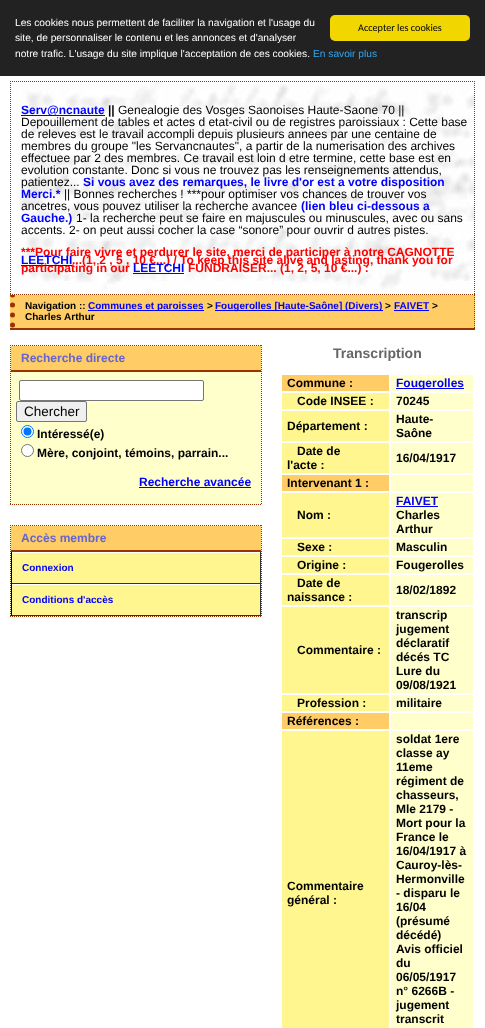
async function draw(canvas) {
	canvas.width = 485;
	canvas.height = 1028;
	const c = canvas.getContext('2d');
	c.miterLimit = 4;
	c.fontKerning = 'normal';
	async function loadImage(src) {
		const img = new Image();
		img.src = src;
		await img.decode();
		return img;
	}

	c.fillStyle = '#fff';
	c.fillRect(0, 0, 485, 1028);
	c.fillStyle = '#222';
	c.fillRect(0, 0, 485, 76);
	c.font = '10.2px Liberation Sans';
	c.fillStyle = '#fff';
	for (const [text, x, y] of [
		['Les cookies nous permettent de faciliter la navigation et l\'usage du', 15, 26],
		['site, de personnaliser le contenu et les annonces et d\'analyser', 15, 41],
		['notre trafic. L\'usage du site implique l\'acceptation de ces cookies.', 15, 57],
	]) {
		c.fillText(text, x, y);
	}
	c.fillStyle = '#31a8f0';
	c.fillText('En savoir plus', 313, 57);
	c.fillStyle = '#f1d600';
	c.beginPath();
	c.roundRect(330, 15, 140, 26, 5);
	c.fill();
	c.font = '10.2px Carlito';
	c.fillStyle = '#000';
	c.fillText('Accepter les cookies', 358, 31);
	c.fillStyle = '#fc6';
	c.fillRect(10, 295, 465, 33);
	c.beginPath();
	c.moveTo(12.5, 295);
	c.lineTo(12.5, 330);
	c.strokeStyle = '#930';
	c.lineWidth = 5;
	c.lineCap = 'round';
	c.setLineDash([0, 10]);
	c.stroke();
	c.drawImage(await loadImage('img1.png'), 10, 81, 465, 214);
	c.beginPath();
	c.moveTo(10, 81.5);
	c.lineTo(475, 81.5);
	c.lineWidth = 1;
	c.lineCap = 'butt';
	c.setLineDash([1, 1]);
	c.stroke();
	c.beginPath();
	c.moveTo(474.5, 81);
	c.lineTo(474.5, 295);
	c.stroke();
	c.beginPath();
	c.moveTo(10, 294.5);
	c.lineTo(475, 294.5);
	c.stroke();
	c.beginPath();
	c.moveTo(10.5, 81);
	c.lineTo(10.5, 295);
	c.stroke();
	c.fillStyle = '#00f';
	c.fillRect(21, 115, 84, 1);
	c.font = 'bold 12px Liberation Sans';
	c.fillText('Serv@ncnaute', 21, 114);
	c.fillStyle = '#000';
	c.fillText('||', 108, 114);
	c.font = '12px Liberation Sans';
	for (const [text, x, y] of [
		['Genealogie des Vosges Saonoises Haute-Saone 70 ||', 118, 114],
		['Depouillement de tables et actes d etat-civil ou de registres paroissiaux : Cette base', 21, 126],
		['de releves est le travail accompli depuis plusieurs annees par une centaine de', 21, 138],
		['membres du groupe "les Servancnautes", a partir de la numerisation des archives', 21, 150],
		['effectuee par 2 des membres. Ce travail est loin d etre termine, cette base est en', 21, 162],
		['evolution constante. Donc si vous ne trouvez pas les renseignements attendus,', 21, 174],
		['patientez...', 21, 186],
	]) {
		c.fillText(text, x, y);
	}
	c.font = 'bold 12px Liberation Sans';
	c.fillStyle = '#00f';
	c.fillText('Si vous avez des remarques, le livre d\'or est a votre disposition', 83, 186);
	c.fillText('Merci.*', 21, 198);
	c.font = '12px Liberation Sans';
	c.fillStyle = '#000';
	c.fillText('|| Bonnes recherches ! ***pour optimiser vos chances de trouver vos', 64, 198);
	c.fillText('ancetres, vous pouvez utiliser la recherche avancee', 21, 210);
	c.font = 'bold 12px Liberation Sans';
	c.fillStyle = '#00f';
	c.fillText('(lien bleu ci-dessous a', 301, 210);
	c.fillText('Gauche.)', 21, 222);
	c.font = '12px Liberation Sans';
	c.fillStyle = '#000';
	c.fillText('1- la recherche peut se faire en majuscules ou minuscules, avec ou sans', 76, 222);
	c.fillText('accents. 2- on peut aussi cocher la case “sonore” pour ouvrir d autres pistes.', 21, 234);
	c.font = 'bold 12px Liberation Sans';
	c.fillStyle = '#f00';
	c.fillText('***Pour faire vivre et perdurer le site, merci de participer à notre CAGNOTTE', 21, 256);
	c.fillStyle = '#00f';
	c.fillText('LEETCHI', 21, 264);
	c.fillStyle = '#f00';
	c.fillText('...(1, 2 , 5 , 10 €...) / To keep this site alive and lasting, thank you for', 72, 264);
	c.fillStyle = '#00f';
	c.fillRect(21, 265, 51, 1);
	c.fillStyle = '#f00';
	c.fillText('participating in our', 21, 272);
	c.fillStyle = '#00f';
	c.fillText('LEETCHI', 133, 272);
	c.fillRect(133, 273, 51, 1);
	c.fillStyle = '#f00';
	c.fillText('FUNDRAISER... (1, 2, 5, 10 €...) :', 188, 272);
	c.beginPath();
	c.moveTo(474.5, 295);
	c.lineTo(474.5, 330);
	c.stroke();
	c.fillStyle = '#930';
	c.fillRect(10, 328, 465, 2);
	c.font = 'bold 10px Liberation Sans';
	c.fillStyle = '#000';
	c.fillText('Navigation ::', 25, 309);
	c.fillStyle = '#00f';
	c.fillRect(88, 310, 116, 1);
	c.fillText('Communes et paroisses', 88, 309);
	c.fillStyle = '#000';
	c.fillText('>', 207, 309);
	c.fillStyle = '#00f';
	c.fillRect(215, 310, 168, 1);
	c.fillText('Fougerolles [Haute-Saône] (Divers)', 215, 309);
	c.fillStyle = '#000';
	c.fillText('>', 385, 309);
	c.fillStyle = '#00f';
	c.fillText('FAIVET', 394, 309);
	c.fillRect(394, 310, 35, 1);
	c.fillStyle = '#000';
	c.fillText('>', 432, 309);
	c.fillText('Charles Arthur', 25, 320);
	c.fillStyle = '#ffc';
	c.fillRect(10, 345, 252, 160);
	c.beginPath();
	c.moveTo(10, 345.5);
	c.lineTo(262, 345.5);
	c.stroke();
	c.beginPath();
	c.moveTo(261.5, 345);
	c.lineTo(261.5, 505);
	c.stroke();
	c.beginPath();
	c.moveTo(10, 504.5);
	c.lineTo(262, 504.5);
	c.stroke();
	c.beginPath();
	c.moveTo(10.5, 345);
	c.lineTo(10.5, 505);
	c.stroke();
	c.fillStyle = '#fc6';
	c.fillRect(11, 346, 250, 24);
	c.fillStyle = '#930';
	c.fillRect(11, 370, 250, 2);
	c.font = 'bold 12px Liberation Sans';
	c.fillStyle = '#66c';
	c.fillText('Recherche directe', 21, 362);
	c.fillStyle = '#fff';
	c.beginPath();
	c.roundRect(19.5, 380.5, 184, 20, 1.5);
	c.fill();
	c.strokeStyle = '#767676';
	c.setLineDash([]);
	c.stroke();
	c.fillStyle = '#efefef';
	c.beginPath();
	c.roundRect(16.5, 401.5, 70, 20, 1.5);
	c.fill();
	c.stroke();
	c.font = '13.5px Liberation Sans';
	c.fillStyle = '#000';
	c.fillText('Chercher', 24, 416);
	c.fillStyle = '#fff';
	c.beginPath();
	c.arc(27.5, 431.5, 6, 0, 2 * Math.PI);
	c.fill();
	c.strokeStyle = '#0075ff';
	c.stroke();
	c.fillStyle = '#0075ff';
	c.beginPath();
	c.arc(27.5, 431.5, 4, 0, 2 * Math.PI);
	c.fill();
	c.font = 'bold 12px Liberation Sans';
	c.fillStyle = '#000';
	c.fillText('Intéressé(e)', 37, 438);
	c.fillStyle = '#fff';
	c.beginPath();
	c.arc(27.5, 450.5, 6, 0, 2 * Math.PI);
	c.fill();
	c.strokeStyle = '#767676';
	c.stroke();
	c.fillStyle = '#000';
	c.fillText('Mère, conjoint, témoins, parrain...', 37, 457);
	c.fillStyle = '#00f';
	c.fillText('Recherche avancée', 139, 486);
	c.fillRect(139, 487, 112, 1);
	c.fillStyle = '#ffc';
	c.fillRect(10, 525, 252, 92);
	c.beginPath();
	c.moveTo(10, 525.5);
	c.lineTo(262, 525.5);
	c.strokeStyle = '#930';
	c.setLineDash([1, 1]);
	c.stroke();
	c.beginPath();
	c.moveTo(261.5, 525);
	c.lineTo(261.5, 617);
	c.stroke();
	c.beginPath();
	c.moveTo(10, 616.5);
	c.lineTo(262, 616.5);
	c.stroke();
	c.beginPath();
	c.moveTo(10.5, 525);
	c.lineTo(10.5, 617);
	c.stroke();
	c.fillStyle = '#fc6';
	c.fillRect(11, 526, 250, 24);
	c.fillStyle = '#930';
	c.fillRect(11, 550, 250, 2);
	c.fillStyle = '#66c';
	c.fillText('Accès membre', 21, 542);
	for (const [x, y, w, h, color] of [
		[12, 553, 248, 30, '#fff68f'],
		[11, 552, 250, 1, '#fff'],
		[260, 552, 1, 32, '#333'],
		[11, 583, 250, 1, '#333'],
		[11, 552, 1, 32, '#000'],
	]) {
		c.fillStyle = color;
		c.fillRect(x, y, w, h);
	}
	c.font = 'bold 10px Liberation Sans';
	c.fillStyle = '#00f';
	c.fillText('Connexion', 22, 571);
	for (const [x, y, w, h, color] of [
		[12, 585, 248, 30, '#fff68f'],
		[11, 584, 250, 1, '#fff'],
		[260, 584, 1, 32, '#333'],
		[11, 615, 250, 1, '#333'],
		[11, 584, 1, 32, '#000'],
	]) {
		c.fillStyle = color;
		c.fillRect(x, y, w, h);
	}
	c.fillStyle = '#00f';
	c.fillText('Conditions d\'accès', 22, 603);
	c.font = 'bold 14px Liberation Sans';
	c.fillStyle = '#666';
	c.fillText('Transcription', 333, 358);
	c.fillStyle = '#fc6';
	c.fillRect(282, 375, 107, 16);
	c.font = 'bold 12px Liberation Sans';
	c.fillStyle = '#000';
	c.fillText('Commune :', 287, 387);
	c.fillStyle = '#ffc';
	c.fillRect(391, 375, 82, 16);
	c.fillStyle = '#00e';
	c.fillRect(396, 388, 68, 1);
	c.fillText('Fougerolles', 396, 387);
	c.fillStyle = '#fff68f';
	c.fillRect(282, 393, 107, 16);
	c.fillStyle = '#000';
	c.fillText('Code INSEE :', 297, 405);
	c.fillStyle = '#ffc';
	c.fillRect(391, 393, 82, 16);
	c.fillStyle = '#000';
	c.fillText('70245', 396, 405);
	c.fillStyle = '#fff68f';
	c.fillRect(282, 411, 107, 30);
	c.fillStyle = '#000';
	c.fillText('Département :', 287, 430);
	c.fillStyle = '#ffc';
	c.fillRect(391, 411, 82, 30);
	c.fillStyle = '#000';
	c.fillText('Haute-', 396, 423);
	c.fillText('Saône', 396, 437);
	c.fillStyle = '#fff68f';
	c.fillRect(282, 443, 107, 30);
	c.fillStyle = '#000';
	c.fillText('Date de', 297, 455);
	c.fillText('l\'acte :', 287, 469);
	c.fillStyle = '#ffc';
	c.fillRect(391, 443, 82, 30);
	c.fillStyle = '#000';
	c.fillText('16/04/1917', 396, 462);
	c.fillStyle = '#fc6';
	c.fillRect(282, 475, 107, 16);
	c.fillStyle = '#000';
	c.fillText('Intervenant 1 :', 287, 487);
	c.fillStyle = '#ffc';
	c.fillRect(391, 475, 82, 16);
	c.fillStyle = '#fff68f';
	c.fillRect(282, 493, 107, 44);
	c.fillStyle = '#000';
	c.fillText('Nom :', 297, 519);
	c.fillStyle = '#ffc';
	c.fillRect(391, 493, 82, 44);
	c.fillStyle = '#00e';
	c.fillText('FAIVET', 396, 505);
	c.fillRect(396, 506, 42, 1);
	c.fillStyle = '#000';
	c.fillText('Charles', 396, 519);
	c.fillText('Arthur', 396, 533);
	c.fillStyle = '#fff68f';
	c.fillRect(282, 539, 107, 16);
	c.fillStyle = '#000';
	c.fillText('Sexe :', 297, 551);
	c.fillStyle = '#ffc';
	c.fillRect(391, 539, 82, 16);
	c.fillStyle = '#000';
	c.fillText('Masculin', 396, 551);
	c.fillStyle = '#fff68f';
	c.fillRect(282, 557, 107, 16);
	c.fillStyle = '#000';
	c.fillText('Origine :', 297, 569);
	c.fillStyle = '#ffc';
	c.fillRect(391, 557, 82, 16);
	c.fillStyle = '#000';
	c.fillText('Fougerolles', 396, 569);
	c.fillStyle = '#fff68f';
	c.fillRect(282, 575, 107, 30);
	c.fillStyle = '#000';
	c.fillText('Date de', 297, 587);
	c.fillText('naissance :', 287, 601);
	c.fillStyle = '#ffc';
	c.fillRect(391, 575, 82, 30);
	c.fillStyle = '#000';
	c.fillText('18/02/1892', 396, 594);
	c.fillStyle = '#fff68f';
	c.fillRect(282, 607, 107, 86);
	c.fillStyle = '#000';
	c.fillText('Commentaire :', 297, 654);
	c.fillStyle = '#ffc';
	c.fillRect(391, 607, 82, 86);
	c.fillStyle = '#000';
	for (const [text, x, y] of [
		['transcrip', 396, 619],
		['jugement', 396, 633],
		['déclaratif', 396, 647],
		['décés TC', 396, 661],
		['Lure du', 396, 675],
		['09/08/1921', 396, 689],
	]) {
		c.fillText(text, x, y);
	}
	c.fillStyle = '#fff68f';
	c.fillRect(282, 695, 107, 16);
	c.fillStyle = '#000';
	c.fillText('Profession :', 297, 707);
	c.fillStyle = '#ffc';
	c.fillRect(391, 695, 82, 16);
	c.fillStyle = '#000';
	c.fillText('militaire', 396, 707);
	c.fillStyle = '#fc6';
	c.fillRect(282, 713, 107, 16);
	c.fillStyle = '#000';
	c.fillText('Références :', 287, 725);
	c.fillStyle = '#ffc';
	c.fillRect(391, 713, 82, 16);
	c.fillStyle = '#fff68f';
	c.fillRect(282, 731, 107, 297);
	c.fillStyle = '#000';
	c.fillText('Commentaire', 287, 890);
	c.fillText('général :', 287, 904);
	c.fillStyle = '#ffc';
	c.fillRect(391, 731, 82, 297);
	c.fillStyle = '#000';
	for (const [text, x, y] of [
		['soldat 1ere', 396, 743],
		['classe ay', 396, 757],
		['11eme', 396, 771],
		['régiment de', 396, 785],
		['chasseurs,', 396, 799],
		['Mle 2179 -', 396, 813],
		['Mort pour la', 396, 827],
		['France le', 396, 841],
		['16/04/1917 à', 396, 855],
		['Cauroy-lès-', 396, 869],
		['Hermonville', 396, 883],
		['- disparu le', 396, 897],
		['16/04', 396, 911],
		['(présumé', 396, 925],
		['décédé)', 396, 939],
		['Avis officiel', 396, 953],
		['du', 396, 967],
		['06/05/1917', 396, 981],
		['n° 6266B -', 396, 995],
		['jugement', 396, 1009],
		['transcrit', 396, 1023],
	]) {
		c.fillText(text, x, y);
	}
}

draw(document.querySelector('canvas'));
